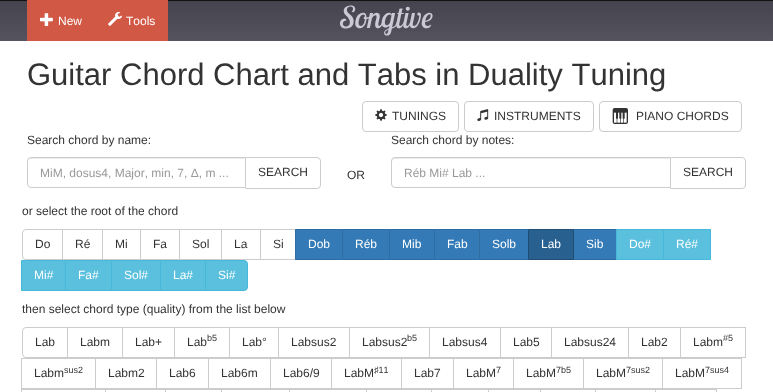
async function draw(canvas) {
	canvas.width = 773;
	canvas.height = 392;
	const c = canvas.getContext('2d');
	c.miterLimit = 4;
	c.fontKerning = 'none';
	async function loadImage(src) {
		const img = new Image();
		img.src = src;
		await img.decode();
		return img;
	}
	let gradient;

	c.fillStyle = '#fff';
	c.fillRect(0, 0, 773, 392);
	gradient = c.createLinearGradient(387, 1, 387, 41);
	gradient.addColorStop(0, '#45434e');
	gradient.addColorStop(1, '#55535e');
	c.fillStyle = gradient;
	c.fillRect(0, 1, 773, 40);
	c.fillStyle = '#131114';
	c.fillRect(0, 0, 773, 1);
	c.fillStyle = '#d15844';
	c.fillRect(27, 0, 141, 41);
	c.drawImage(await loadImage('img1.png'), 40, 13, 13, 13);
	c.font = '12px Liberation Sans';
	c.fillStyle = '#fff';
	c.fillText('New', 58, 25);
	c.drawImage(await loadImage('img2.png'), 108, 12, 14, 14);
	c.fillText('Tools', 126, 25);
	c.font = 'italic 30px Lobster Two';
	c.fillStyle = '#cbc9d6';
	c.fillText('Songtive', 340, 28);
	c.font = '31px Liberation Sans';
	c.fillStyle = '#333';
	c.fillText('Guitar Chord Chart and Tabs in Duality Tuning', 27, 85);
	c.beginPath();
	c.roundRect(362.5, 101.5, 96, 30, 3.5);
	c.strokeStyle = '#ccc';
	c.stroke();
	c.drawImage(await loadImage('img3.png'), 375, 109, 12, 12);
	c.font = '12px Liberation Sans';
	c.fillText('TUNINGS', 392, 120);
	c.beginPath();
	c.roundRect(464.5, 101.5, 129, 30, 3.5);
	c.stroke();
	c.drawImage(await loadImage('img4.png'), 477, 109, 12, 12);
	c.fillText('INSTRUMENTS', 494, 120);
	c.beginPath();
	c.roundRect(599.5, 101.5, 142, 30, 3.5);
	c.stroke();
	c.drawImage(await loadImage('img5.png'), 612, 108, 16, 16);
	c.fillText('PIANO CHORDS', 636, 120);
	c.fillText('Search chord by name:', 27, 144);
	c.beginPath();
	c.roundRect(245.5, 157.5, 75, 31, [0, 3.5, 3.5, 0]);
	c.stroke();
	c.fillStyle = '#fff';
	c.beginPath();
	c.roundRect(27, 157, 219, 31, [4, 0, 0, 4]);
	c.fill();
	c.fillStyle = '#ececec';
	c.beginPath();
	c.moveTo(31, 159);
	c.lineTo(245, 159);
	c.lineTo(245, 158);
	c.lineTo(31, 158);
	c.bezierCurveTo(29, 158, 28, 159, 28, 161);
	c.lineTo(28, 162);
	c.bezierCurveTo(28, 160, 29, 159, 31, 159);
	c.closePath();
	c.fill();
	c.beginPath();
	c.roundRect(27.5, 157.5, 218, 30, [3.5, 0, 0, 3.5]);
	c.stroke();
	c.fillStyle = '#999';
	c.fillText('MiM, dosus4, Major, min, 7, Δ, m ...', 40, 177);
	c.fillStyle = '#333';
	for (const [text, x, y] of [
		['SEARCH', 258, 176],
		['OR', 347, 179],
		['Search chord by notes:', 391, 144],
	]) {
		c.fillText(text, x, y);
	}
	c.beginPath();
	c.roundRect(670.5, 157.5, 75, 31, [0, 3.5, 3.5, 0]);
	c.stroke();
	c.fillStyle = '#fff';
	c.beginPath();
	c.roundRect(391, 157, 280, 31, [4, 0, 0, 4]);
	c.fill();
	c.fillStyle = '#ececec';
	c.beginPath();
	c.moveTo(395, 159);
	c.lineTo(670, 159);
	c.lineTo(670, 158);
	c.lineTo(395, 158);
	c.bezierCurveTo(393, 158, 392, 159, 392, 161);
	c.lineTo(392, 162);
	c.bezierCurveTo(392, 160, 393, 159, 395, 159);
	c.closePath();
	c.fill();
	c.beginPath();
	c.roundRect(391.5, 157.5, 279, 30, [3.5, 0, 0, 3.5]);
	c.stroke();
	c.fillStyle = '#999';
	c.fillText('Réb Mi# Lab ...', 404, 177);
	c.fillStyle = '#333';
	c.fillText('SEARCH', 683, 176);
	c.fillText('or select the root of the chord', 22, 215);
	c.beginPath();
	c.roundRect(22.5, 229.5, 40, 30, [3.5, 0, 0, 3.5]);
	c.stroke();
	c.fillText('Do', 35, 248);
	c.strokeRect(62.5, 229.5, 40, 30);
	c.fillText('Ré', 75, 248);
	c.strokeRect(102.5, 229.5, 38, 30);
	c.fillText('Mi', 115, 248);
	c.strokeRect(140.5, 229.5, 39, 30);
	c.fillText('Fa', 153, 248);
	c.strokeRect(179.5, 229.5, 42, 30);
	c.fillText('Sol', 192, 248);
	c.strokeRect(221.5, 229.5, 39, 30);
	c.fillText('La', 234, 248);
	c.strokeRect(260.5, 229.5, 35, 30);
	c.fillText('Si', 273, 248);
	c.fillStyle = '#337ab7';
	c.beginPath();
	c.rect(295.5, 229.5, 47, 30);
	c.fill();
	c.strokeStyle = '#2e6da4';
	c.stroke();
	c.fillStyle = '#fff';
	c.fillText('Dob', 308, 248);
	c.fillStyle = '#337ab7';
	c.beginPath();
	c.rect(342.5, 229.5, 47, 30);
	c.fill();
	c.stroke();
	c.fillStyle = '#fff';
	c.fillText('Réb', 355, 248);
	c.fillStyle = '#337ab7';
	c.beginPath();
	c.rect(389.5, 229.5, 45, 30);
	c.fill();
	c.stroke();
	c.fillStyle = '#fff';
	c.fillText('Mib', 402, 248);
	c.fillStyle = '#337ab7';
	c.beginPath();
	c.rect(434.5, 229.5, 45, 30);
	c.fill();
	c.stroke();
	c.fillStyle = '#fff';
	c.fillText('Fab', 447, 248);
	c.fillStyle = '#337ab7';
	c.beginPath();
	c.rect(479.5, 229.5, 49, 30);
	c.fill();
	c.stroke();
	c.fillStyle = '#fff';
	c.fillText('Solb', 492, 248);
	c.fillStyle = '#337ab7';
	c.beginPath();
	c.rect(573.5, 229.5, 43, 30);
	c.fill();
	c.stroke();
	c.fillStyle = '#286090';
	c.beginPath();
	c.rect(528.5, 229.5, 45, 30);
	c.fill();
	c.strokeStyle = '#204d74';
	c.stroke();
	c.fillStyle = '#fff';
	c.fillText('Lab', 541, 248);
	c.fillText('Sib', 586, 248);
	c.fillStyle = '#5bc0de';
	c.beginPath();
	c.rect(616.5, 229.5, 47, 30);
	c.fill();
	c.strokeStyle = '#46b8da';
	c.stroke();
	c.fillStyle = '#fff';
	c.fillText('Do#', 629, 248);
	c.fillStyle = '#5bc0de';
	c.beginPath();
	c.rect(663.5, 229.5, 47, 30);
	c.fill();
	c.stroke();
	c.fillStyle = '#fff';
	c.fillText('Ré#', 676, 248);
	c.fillStyle = '#5bc0de';
	c.beginPath();
	c.rect(21.5, 260.5, 44, 30);
	c.fill();
	c.stroke();
	c.fillStyle = '#fff';
	c.fillText('Mi#', 34, 279);
	c.fillStyle = '#5bc0de';
	c.beginPath();
	c.rect(65.5, 260.5, 46, 30);
	c.fill();
	c.stroke();
	c.fillStyle = '#fff';
	c.fillText('Fa#', 78, 279);
	c.fillStyle = '#5bc0de';
	c.beginPath();
	c.rect(111.5, 260.5, 49, 30);
	c.fill();
	c.stroke();
	c.fillStyle = '#fff';
	c.fillText('Sol#', 124, 279);
	c.fillStyle = '#5bc0de';
	c.beginPath();
	c.rect(160.5, 260.5, 45, 30);
	c.fill();
	c.stroke();
	c.fillStyle = '#fff';
	c.fillText('La#', 173, 279);
	c.fillStyle = '#5bc0de';
	c.beginPath();
	c.roundRect(205.5, 260.5, 42, 30, [0, 3.5, 3.5, 0]);
	c.fill();
	c.stroke();
	c.fillStyle = '#fff';
	c.fillText('Si#', 218, 279);
	c.fillStyle = '#333';
	c.fillText('then select chord type (quality) from the list below', 22, 313);
	c.beginPath();
	c.roundRect(22.5, 327.5, 45, 30, [3.5, 0, 0, 3.5]);
	c.strokeStyle = '#ccc';
	c.stroke();
	c.fillText('Lab', 35, 346);
	c.strokeRect(67.5, 327.5, 55, 30);
	c.fillText('Labm', 80, 346);
	c.strokeRect(122.5, 327.5, 52, 30);
	c.fillText('Lab+', 135, 346);
	c.strokeRect(174.5, 327.5, 55, 30);
	c.fillText('Lab', 187, 346);
	c.font = '9px Liberation Sans';
	c.fillText('b5', 207, 341);
	c.strokeRect(229.5, 327.5, 49, 30);
	c.font = '12px Liberation Sans';
	c.fillText('Lab°', 242, 346);
	c.strokeRect(278.5, 327.5, 71, 30);
	c.fillText('Labsus2', 291, 346);
	c.strokeRect(349.5, 327.5, 80, 30);
	c.fillText('Labsus2', 362, 346);
	c.font = '9px Liberation Sans';
	c.fillText('b5', 407, 341);
	c.strokeRect(429.5, 327.5, 71, 30);
	c.font = '12px Liberation Sans';
	c.fillText('Labsus4', 442, 346);
	c.strokeRect(500.5, 327.5, 51, 30);
	c.fillText('Lab5', 513, 346);
	c.strokeRect(551.5, 327.5, 77, 30);
	c.fillText('Labsus24', 564, 346);
	c.strokeRect(628.5, 327.5, 52, 30);
	c.fillText('Lab2', 641, 346);
	c.strokeRect(680.5, 327.5, 65, 30);
	c.fillText('Labm', 693, 346);
	c.font = '9px Liberation Sans';
	c.fillText('#5', 723, 341);
	c.strokeRect(21.5, 358.5, 74, 30);
	c.font = '12px Liberation Sans';
	c.fillText('Labm', 34, 377);
	c.font = '9px Liberation Sans';
	c.fillText('sus2', 64, 373);
	c.strokeRect(95.5, 358.5, 61, 30);
	c.font = '12px Liberation Sans';
	c.fillText('Labm2', 108, 377);
	c.strokeRect(156.5, 358.5, 52, 30);
	c.fillText('Lab6', 169, 377);
	c.strokeRect(208.5, 358.5, 62, 30);
	c.fillText('Lab6m', 221, 377);
	c.strokeRect(270.5, 358.5, 61, 30);
	c.fillText('Lab6/9', 283, 377);
	c.strokeRect(331.5, 358.5, 70, 30);
	c.fillText('LabM', 344, 377);
	c.font = '9px Liberation Sans';
	c.fillText('♯11', 374, 373);
	c.strokeRect(401.5, 358.5, 52, 30);
	c.font = '12px Liberation Sans';
	c.fillText('Lab7', 414, 377);
	c.strokeRect(453.5, 358.5, 60, 30);
	c.fillText('LabM', 466, 377);
	c.font = '9px Liberation Sans';
	c.fillText('7', 496, 373);
	c.strokeRect(513.5, 358.5, 70, 30);
	c.font = '12px Liberation Sans';
	c.fillText('LabM', 526, 377);
	c.font = '9px Liberation Sans';
	c.fillText('7b5', 556, 373);
	c.strokeRect(583.5, 358.5, 79, 30);
	c.font = '12px Liberation Sans';
	c.fillText('LabM', 596, 377);
	c.font = '9px Liberation Sans';
	c.fillText('7sus2', 626, 373);
	c.strokeRect(662.5, 358.5, 79, 30);
	c.font = '12px Liberation Sans';
	c.fillText('LabM', 675, 377);
	c.font = '9px Liberation Sans';
	c.fillText('7sus4', 705, 373);
	c.strokeRect(21.5, 389.5, 84, 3);
	c.fillStyle = '#fff';
	c.fillRect(105, 390, 1, 2);
	c.strokeRect(105.5, 389.5, 60, 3);
	c.fillRect(165, 390, 1, 2);
	c.strokeRect(165.5, 389.5, 56, 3);
	c.fillRect(221, 390, 1, 2);
	c.strokeRect(221.5, 389.5, 68, 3);
	c.fillRect(289, 390, 1, 2);
	c.strokeRect(289.5, 389.5, 77, 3);
	c.fillRect(366, 390, 1, 2);
	c.strokeRect(366.5, 389.5, 65, 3);
	c.fillRect(431, 390, 1, 2);
	c.strokeRect(431.5, 389.5, 57, 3);
	c.fillRect(488, 390, 1, 2);
	c.strokeRect(488.5, 389.5, 52, 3);
	c.fillRect(540, 390, 1, 2);
	c.strokeRect(540.5, 389.5, 55, 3);
	c.fillRect(595, 390, 1, 2);
	c.strokeRect(595.5, 389.5, 60, 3);
	c.fillRect(655, 390, 1, 2);
	c.strokeRect(655.5, 389.5, 61, 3);
}

draw(document.querySelector('canvas'));
